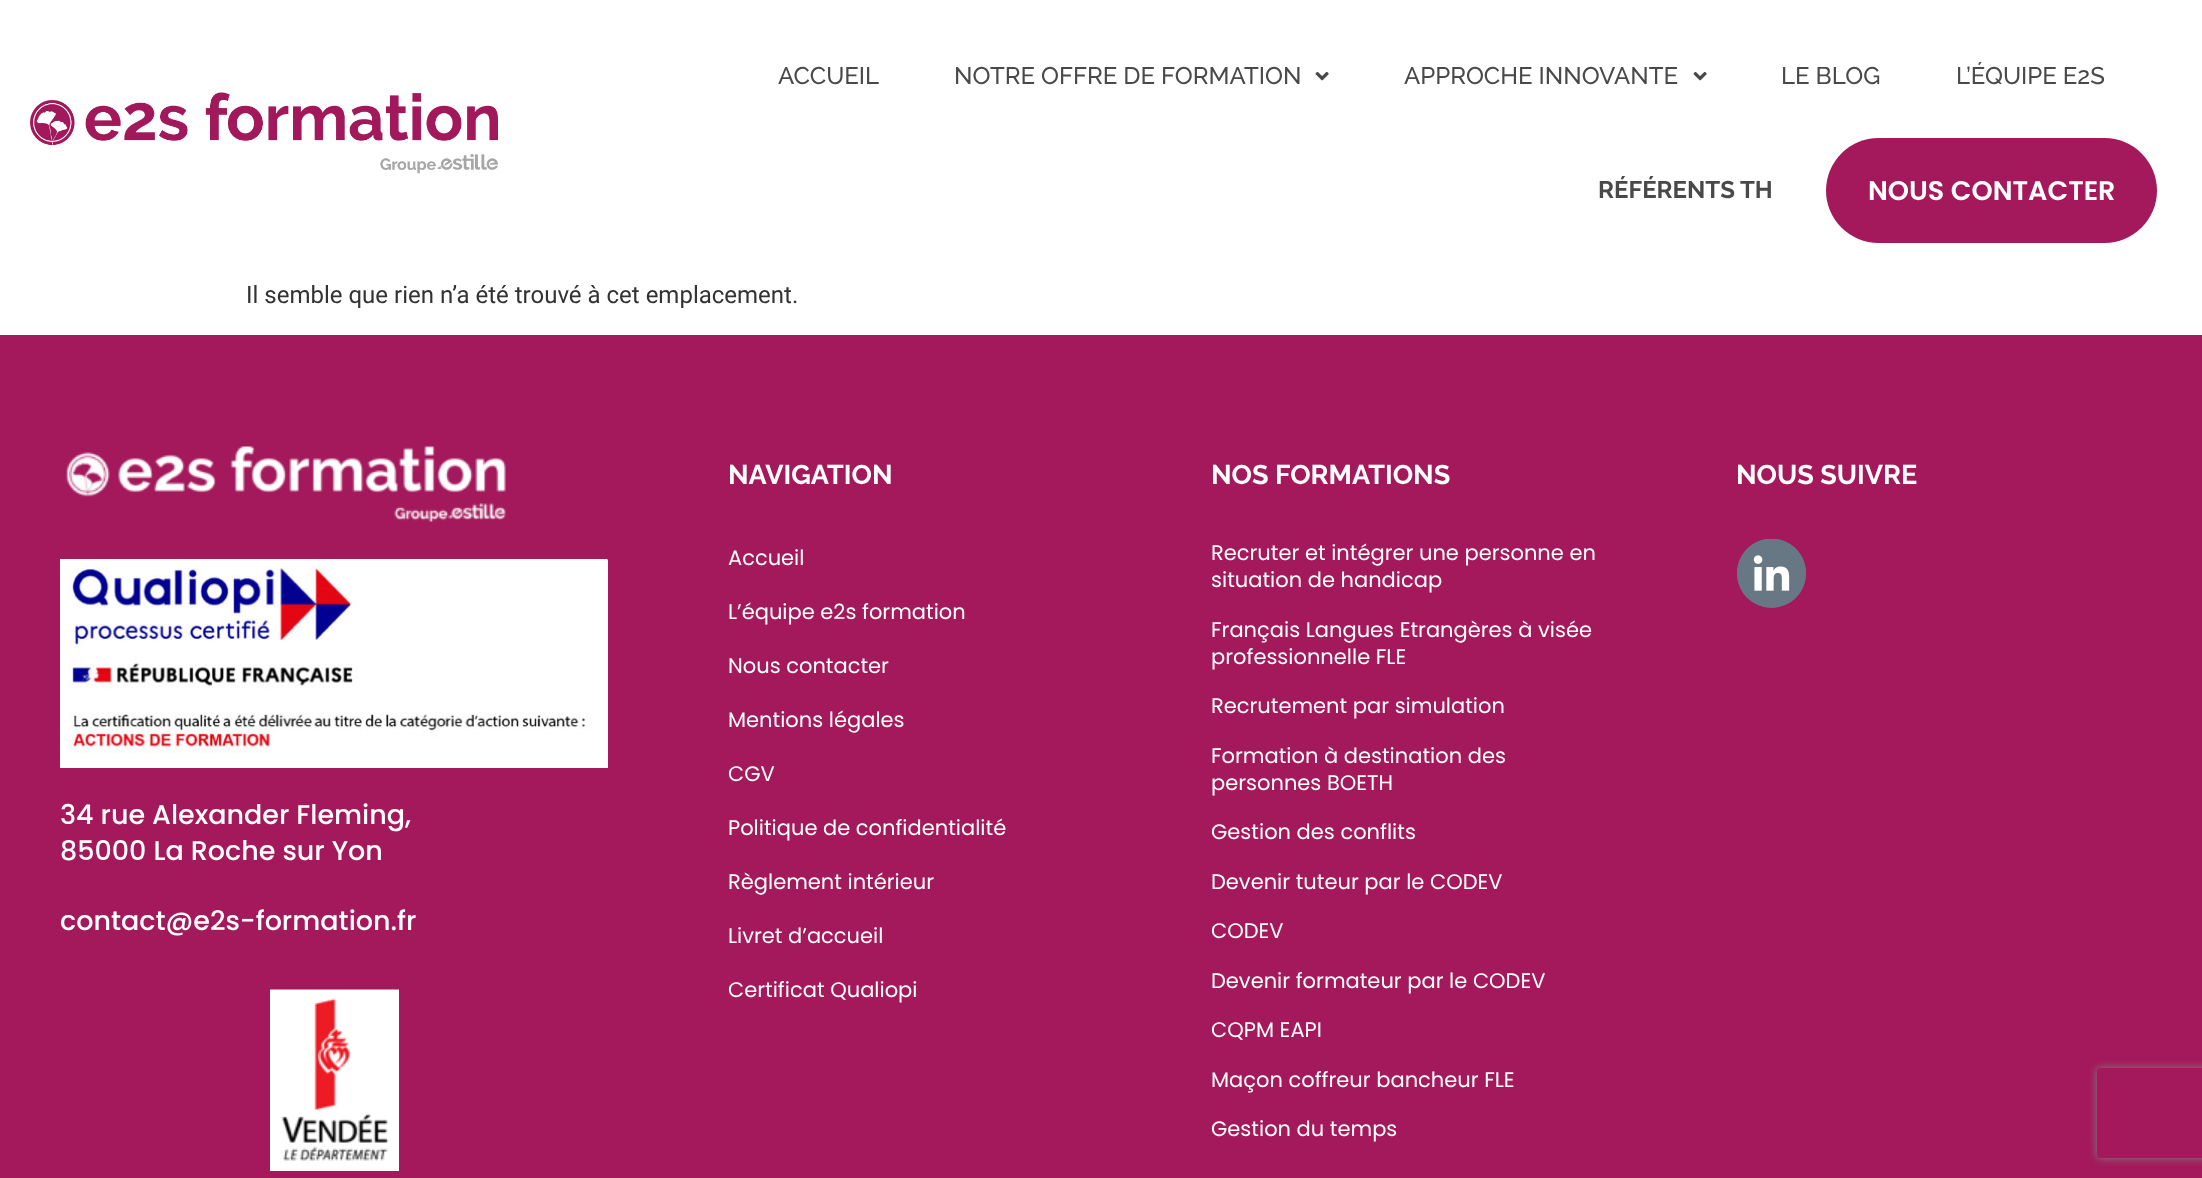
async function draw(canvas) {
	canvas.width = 2202;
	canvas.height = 1178;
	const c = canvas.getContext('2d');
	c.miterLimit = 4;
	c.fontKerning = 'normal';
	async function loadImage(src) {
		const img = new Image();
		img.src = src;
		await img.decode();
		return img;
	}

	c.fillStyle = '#fff';
	c.fillRect(0, 0, 2202, 1178);
	c.drawImage(await loadImage('img1.png'), 30, 92, 468, 82);
	c.font = '500 24px Raleway';
	c.fillStyle = '#494949';
	c.fillText('ACCUEIL', 778, 84);
	c.fillText('NOTRE OFFRE DE FORMATION', 954, 84);
	c.drawImage(await loadImage('img2.png'), 1315, 71, 14, 10);
	c.fillText('APPROCHE INNOVANTE', 1404, 84);
	c.drawImage(await loadImage('img2.png'), 1693, 71, 14, 10);
	c.fillText('LE BLOG', 1781, 84);
	c.fillText('L’ÉQUIPE E2S', 1956, 84);
	c.font = 'bold 24px Raleway';
	c.fillText('RÉFÉRENTS TH', 1598, 198);
	c.fillStyle = '#a3195b';
	c.beginPath();
	c.roundRect(1826, 138, 331, 105, 52.5);
	c.fill();
	c.font = '600 27px Poppins';
	c.fillStyle = '#fff';
	c.fillText('NOUS CONTACTER', 1868, 200);
	c.font = '24px Roboto';
	c.fillStyle = '#333';
	c.fillText('Il semble que rien n’a été trouvé à cet emplacement.', 246, 303);
	c.fillStyle = '#a3195b';
	c.fillRect(0, 335, 2202, 843);
	c.font = 'bold 27px Raleway';
	c.fillStyle = '#fff';
	c.fillText('NAVIGATION', 728, 484);
	c.font = '21px Poppins';
	for (const [text, x, y] of [
		['Accueil', 728, 565],
		['L’équipe e2s formation', 728, 619],
		['Nous contacter', 728, 673],
		['Mentions légales', 728, 727],
		['CGV', 728, 781],
		['Politique de confidentialité', 728, 835],
		['Règlement intérieur', 728, 889],
		['Livret d’accueil', 728, 943],
		['Certificat Qualiopi', 728, 997],
	]) {
		c.fillText(text, x, y);
	}
	c.font = 'bold 27px Raleway';
	c.fillText('NOS FORMATIONS', 1211, 484);
	c.font = '21px Poppins';
	for (const [text, x, y] of [
		['Recruter et intégrer une personne en', 1211, 560],
		['situation de handicap', 1211, 587],
		['Français Langues Etrangères à visée', 1211, 637],
		['professionnelle FLE', 1211, 664],
		['Recrutement par simulation', 1211, 713],
		['Formation à destination des', 1211, 763],
		['personnes BOETH', 1211, 790],
		['Gestion des conflits', 1211, 839],
		['Devenir tuteur par le CODEV', 1211, 889],
		['CODEV', 1211, 938],
		['Devenir formateur par le CODEV', 1211, 988],
		['CQPM EAPI', 1211, 1037],
		['Maçon coffreur bancheur FLE', 1211, 1087],
		['Gestion du temps', 1211, 1136],
	]) {
		c.fillText(text, x, y);
	}
	c.font = 'bold 27px Raleway';
	c.fillText('NOUS SUIVRE', 1736, 484);
	c.fillStyle = '#69727d';
	c.beginPath();
	c.arc(1771.5, 573.5, 34.5, 0, 2 * Math.PI);
	c.fill();
	c.drawImage(await loadImage('img3.png'), 1737, 539, 69, 69);
	c.drawImage(await loadImage('img4.png'), 65, 446, 441, 76);
	c.fillStyle = '#fff';
	c.fillRect(60, 560, 548, 208);
	c.drawImage(await loadImage('img5.png'), 60, 559, 548, 195);
	c.font = '500 27px Poppins';
	for (const [text, x, y] of [
		['34 rue Alexander Fleming,', 60, 824],
		['85000 La Roche sur Yon', 60, 860],
		['contact@e2s-formation.fr', 60, 930],
	]) {
		c.fillText(text, x, y);
	}
	c.drawImage(await loadImage('img6.png'), 270, 989, 129, 182);
	c.save();
	c.beginPath();
	c.moveTo(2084, 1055);
	c.lineTo(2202, 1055);
	c.lineTo(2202, 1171);
	c.lineTo(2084, 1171);
	c.closePath();
	c.moveTo(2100, 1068);
	c.lineTo(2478, 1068);
	c.bezierCurveTo(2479.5, 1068, 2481, 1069.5, 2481, 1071);
	c.lineTo(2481, 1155);
	c.bezierCurveTo(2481, 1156.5, 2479.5, 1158, 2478, 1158);
	c.lineTo(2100, 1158);
	c.bezierCurveTo(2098.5, 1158, 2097, 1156.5, 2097, 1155);
	c.lineTo(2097, 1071);
	c.bezierCurveTo(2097, 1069.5, 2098.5, 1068, 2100, 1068);
	c.closePath();
	c.clip('evenodd');
	c.fillStyle = '#808080';
	c.filter = 'blur(4px)';
	c.beginPath();
	c.roundRect(2097, 1068, 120, 90, 3);
	c.fill();
	c.filter = 'none';
	c.restore();
}

draw(document.querySelector('canvas'));
